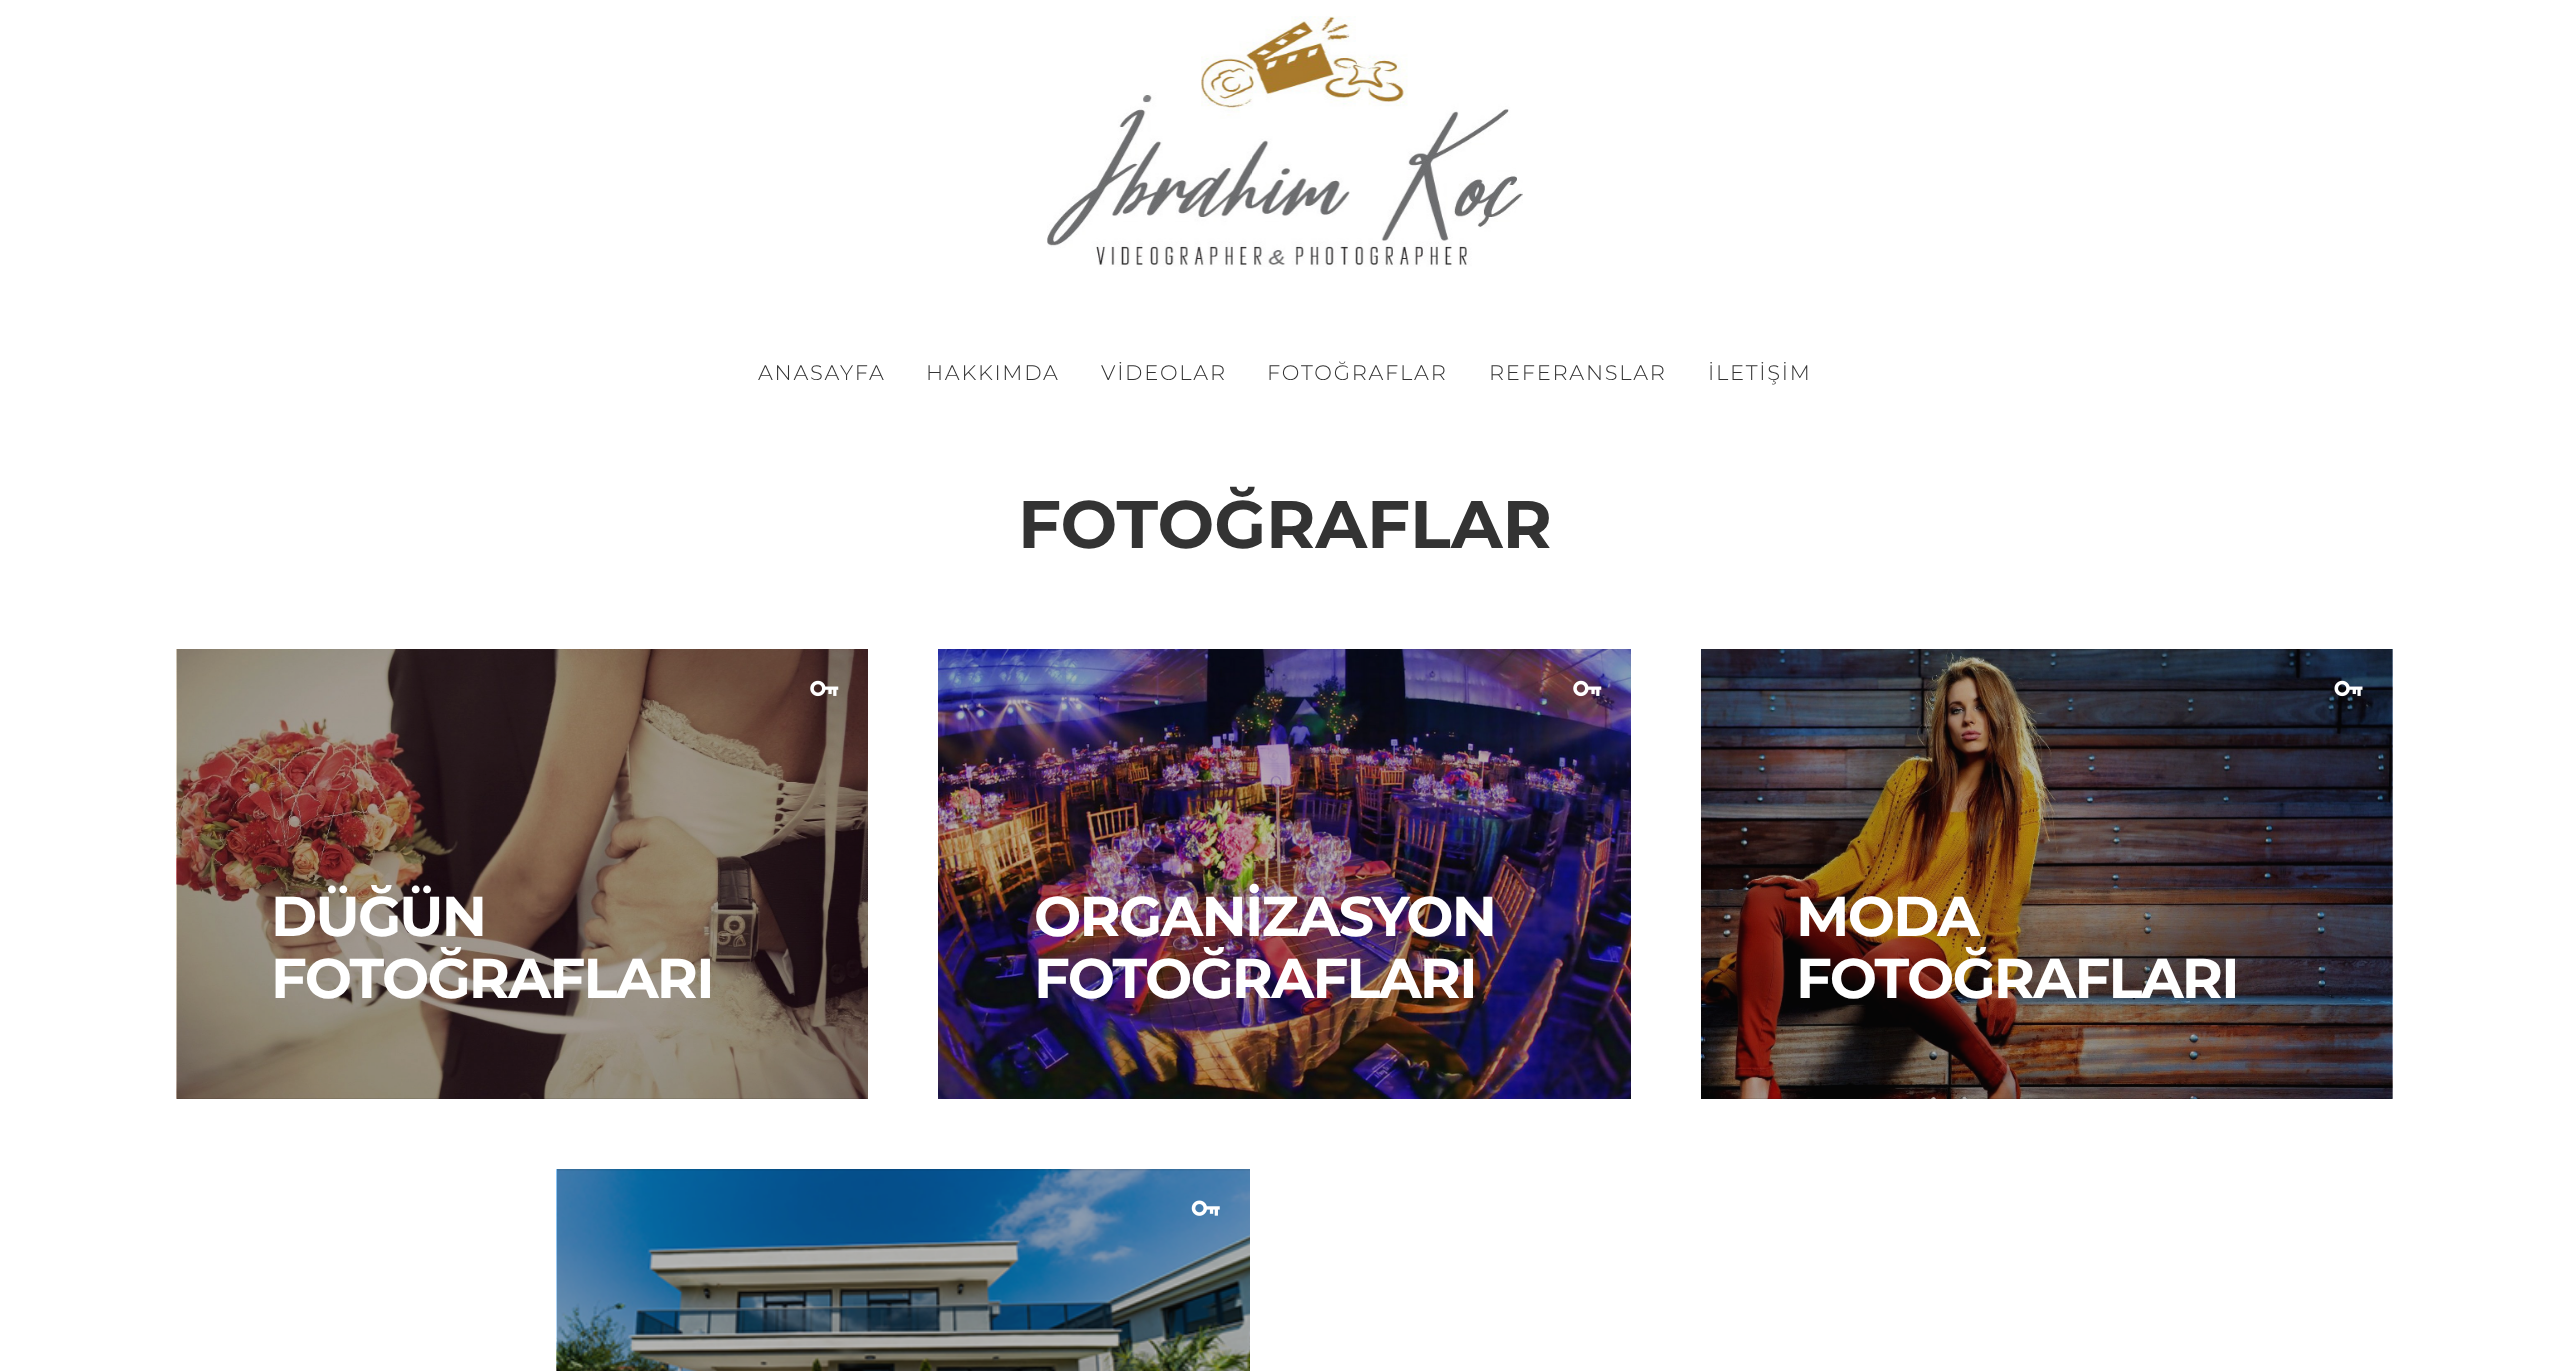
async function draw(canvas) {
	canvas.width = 2569;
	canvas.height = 1371;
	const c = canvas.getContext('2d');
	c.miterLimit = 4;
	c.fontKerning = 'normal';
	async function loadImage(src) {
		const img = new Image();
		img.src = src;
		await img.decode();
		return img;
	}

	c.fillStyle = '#fff';
	c.fillRect(0, 0, 2569, 1371);
	c.drawImage(await loadImage('img1.png'), 1047, 16, 476, 251);
	c.letterSpacing = '1.75px';
	c.font = '300 21px Montserrat';
	c.fillStyle = '#333';
	for (const [text, x, y] of [
		['ANASAYFA', 758, 380],
		['HAKKIMDA', 926, 380],
		['VİDEOLAR', 1101, 380],
		['FOTOĞRAFLAR', 1267, 380],
		['REFERANSLAR', 1489, 380],
		['İLETİŞİM', 1708, 380],
	]) {
		c.fillText(text, x, y);
	}
	c.letterSpacing = '0px';
	c.font = 'bold 67.25px Montserrat';
	c.fillText('FOTOĞRAFLAR', 1018, 548);
	c.fillStyle = '#111';
	c.fillRect(177, 649, 691, 450);
	c.drawImage(await loadImage('img2.png'), 176, 649, 692, 450);
	c.drawImage(await loadImage('img3.png'), 810, 680, 29, 17);
	c.letterSpacing = '-1.75px';
	c.font = 'bold 56px Montserrat';
	c.fillStyle = '#fff';
	c.fillText('DÜĞÜN', 271, 936);
	c.fillText('FOTOĞRAFLARI', 271, 998);
	c.fillStyle = '#111';
	c.fillRect(938, 649, 693, 450);
	c.drawImage(await loadImage('img4.png'), 938, 649, 693, 450);
	c.drawImage(await loadImage('img5.png'), 1573, 680, 29, 17);
	c.fillStyle = '#fff';
	c.fillText('ORGANİZASYON', 1034, 936);
	c.fillText('FOTOĞRAFLARI', 1034, 998);
	c.fillStyle = '#111';
	c.fillRect(1701, 649, 691, 450);
	c.drawImage(await loadImage('img6.png'), 1701, 649, 692, 450);
	c.drawImage(await loadImage('img7.png'), 2334, 680, 29, 17);
	c.fillStyle = '#fff';
	c.fillText('MODA', 1796, 936);
	c.fillText('FOTOĞRAFLARI', 1796, 998);
	c.fillStyle = '#111';
	c.fillRect(557, 1169, 693, 202);
	c.drawImage(await loadImage('img8.png'), 556, 1169, 694, 202);
	c.drawImage(await loadImage('img9.png'), 1191, 1200, 29, 16);
}

draw(document.querySelector('canvas'));
